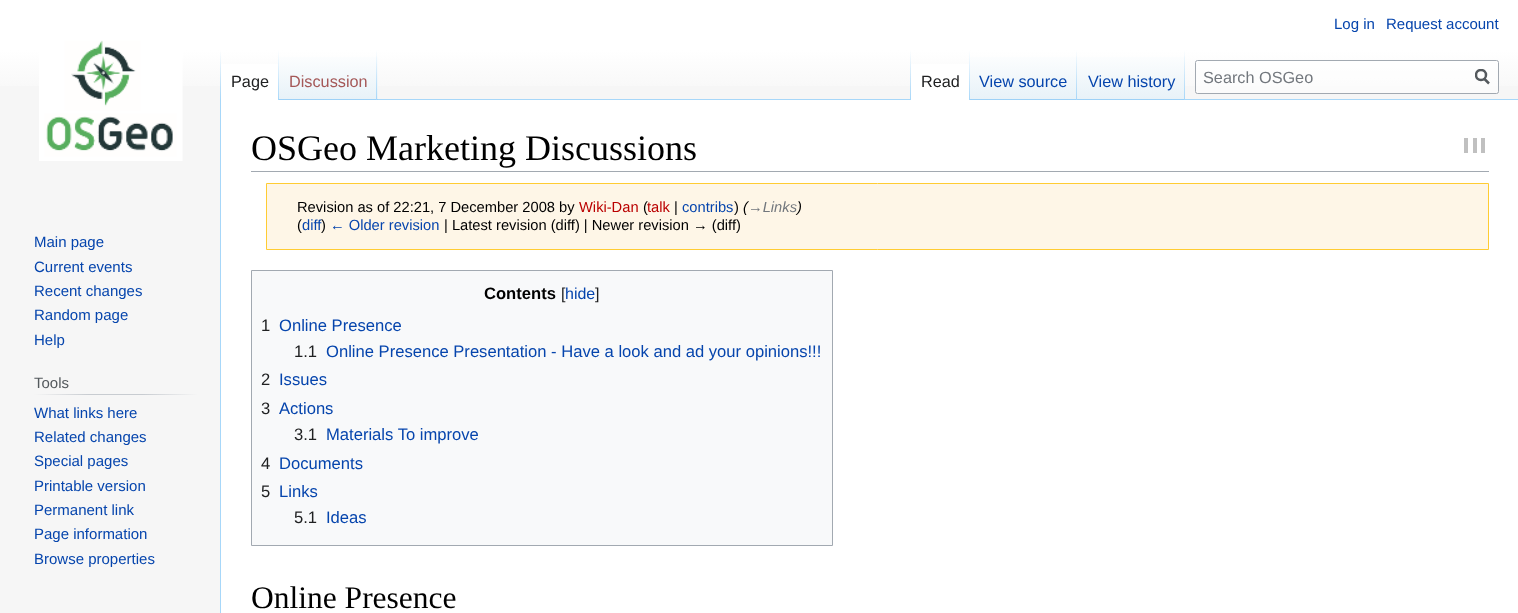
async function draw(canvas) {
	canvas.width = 1518;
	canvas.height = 613;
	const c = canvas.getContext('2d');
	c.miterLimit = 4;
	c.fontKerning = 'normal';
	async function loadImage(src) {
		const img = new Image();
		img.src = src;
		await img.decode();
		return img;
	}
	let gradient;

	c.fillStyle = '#f6f6f6';
	c.fillRect(0, 0, 1518, 613);
	gradient = c.createLinearGradient(759, 0, 759, 100);
	gradient.addColorStop(0.5, '#fff');
	gradient.addColorStop(1, '#f6f6f6');
	c.fillStyle = gradient;
	c.fillRect(0, 0, 1518, 86);
	c.font = '15px Liberation Sans';
	c.fillStyle = '#0645ad';
	c.fillText('Log in', 1334, 29);
	c.fillText('Request account', 1386, 29);
	c.fillStyle = '#a7d7f9';
	c.fillRect(220, 99, 1, 514);
	gradient = c.createLinearGradient(221, 50, 221, 100);
	gradient.addColorStop(0, '#a7d7f900');
	gradient.addColorStop(1, '#a7d7f9');
	c.fillStyle = gradient;
	c.fillRect(220, 50, 1, 50);
	c.fillStyle = '#fff';
	c.fillRect(221, 64, 57, 36);
	gradient = c.createLinearGradient(278, 50, 278, 100);
	gradient.addColorStop(0, '#fff');
	gradient.addColorStop(1, '#a7d7f9');
	c.fillStyle = gradient;
	c.fillRect(278, 50, 1, 50);
	c.font = '16.25px Liberation Sans';
	c.fillStyle = '#202122';
	c.fillText('Page', 231, 87);
	gradient = c.createLinearGradient(328, 100, 328, 50);
	gradient.addColorStop(0, '#77c1f6');
	gradient.addColorStop(0.03, '#e8f2f8');
	gradient.addColorStop(1, '#fff');
	c.fillStyle = gradient;
	c.fillRect(279, 57, 99, 43);
	gradient = c.createLinearGradient(377, 50, 377, 100);
	gradient.addColorStop(0, '#a7d7f900');
	gradient.addColorStop(1, '#a7d7f9');
	c.fillStyle = gradient;
	c.fillRect(376, 50, 1, 50);
	c.fillStyle = '#a55858';
	c.fillText('Discussion', 289, 87);
	c.fillStyle = '#a7d7f9';
	c.fillRect(378, 99, 1140, 1);
	gradient = c.createLinearGradient(911, 50, 911, 100);
	gradient.addColorStop(0, '#a7d7f900');
	gradient.addColorStop(1, '#a7d7f9');
	c.fillStyle = gradient;
	c.fillRect(910, 50, 1, 50);
	c.fillStyle = '#fff';
	c.fillRect(911, 64, 58, 36);
	gradient = c.createLinearGradient(969, 50, 969, 100);
	gradient.addColorStop(0, '#fff');
	gradient.addColorStop(1, '#a7d7f9');
	c.fillStyle = gradient;
	c.fillRect(969, 50, 1, 50);
	c.fillStyle = '#202122';
	c.fillText('Read', 921, 87);
	gradient = c.createLinearGradient(1024, 100, 1024, 50);
	gradient.addColorStop(0, '#77c1f6');
	gradient.addColorStop(0.03, '#e8f2f8');
	gradient.addColorStop(1, '#fff');
	c.fillStyle = gradient;
	c.fillRect(970, 57, 108, 43);
	gradient = c.createLinearGradient(1077, 50, 1077, 100);
	gradient.addColorStop(0, '#a7d7f900');
	gradient.addColorStop(1, '#a7d7f9');
	c.fillStyle = gradient;
	c.fillRect(1076, 50, 1, 50);
	c.fillStyle = '#0645ad';
	c.fillText('View source', 979, 87);
	gradient = c.createLinearGradient(1131, 100, 1131, 50);
	gradient.addColorStop(0, '#77c1f6');
	gradient.addColorStop(0.03, '#e8f2f8');
	gradient.addColorStop(1, '#fff');
	c.fillStyle = gradient;
	c.fillRect(1078, 57, 107, 43);
	gradient = c.createLinearGradient(1184, 50, 1184, 100);
	gradient.addColorStop(0, '#a7d7f900');
	gradient.addColorStop(1, '#a7d7f9');
	c.fillStyle = gradient;
	c.fillRect(1184, 50, 1, 50);
	c.fillStyle = '#0645ad';
	c.fillText('View history', 1088, 87);
	c.fillStyle = '#ffffff80';
	c.beginPath();
	c.roundRect(1195.5, 60.5, 303, 33, 2);
	c.fill();
	c.strokeStyle = '#a2a9b1';
	c.stroke();
	c.fillStyle = '#72777d';
	c.fillText('Search OSGeo', 1203, 83);
	c.beginPath();
	c.moveTo(1489, 83.5);
	c.lineTo(1484, 78.5);
	c.strokeStyle = '#54595d';
	c.lineWidth = 2.5;
	c.stroke();
	c.save();
	c.beginPath();
	c.rect(1475, 69, 15, 16);
	c.clip();
	c.beginPath();
	c.arc(1481, 75, 5, 0, 2 * Math.PI);
	c.stroke();
	c.restore();
	c.drawImage(await loadImage('img1.png'), 39, 40, 144, 121);
	c.font = '15px Liberation Sans';
	c.fillStyle = '#0645ad';
	for (const [text, x, y] of [
		['Main page', 34, 247],
		['Current events', 34, 272],
		['Recent changes', 34, 296],
		['Random page', 34, 320],
		['Help', 34, 345],
	]) {
		c.fillText(text, x, y);
	}
	gradient = c.createLinearGradient(34, 394, 198, 394);
	gradient.addColorStop(0, '#f6f6f6');
	gradient.addColorStop(0.33, '#c8ccd1');
	gradient.addColorStop(0.66, '#c8ccd1');
	gradient.addColorStop(1, '#f6f6f6');
	c.fillStyle = gradient;
	c.fillRect(34, 394, 164, 1);
	c.fillStyle = '#54595d';
	c.fillText('Tools', 34, 388);
	c.fillStyle = '#0645ad';
	for (const [text, x, y] of [
		['What links here', 34, 418],
		['Related changes', 34, 442],
		['Special pages', 34, 466],
		['Printable version', 34, 491],
		['Permanent link', 34, 515],
		['Page information', 34, 539],
		['Browse properties', 34, 564],
	]) {
		c.fillText(text, x, y);
	}
	c.fillStyle = '#fff';
	c.fillRect(221, 100, 1297, 513);
	c.fillStyle = '#a2a9b1';
	c.fillRect(251, 171, 1238, 1);
	c.font = '36px Liberation Serif';
	c.fillStyle = '#000';
	c.fillText('OSGeo Marketing Discussions', 251, 160);
	for (const [x, y, w, h, color] of [
		[1473, 138, 4, 15, '#c0c0c0'],
		[1464, 138, 4, 15, '#c0c0c0'],
		[1481, 138, 4, 15, '#c0c0c0'],
	]) {
		c.fillStyle = color;
		c.fillRect(x, y, w, h);
	}
	c.fillStyle = '#fef6e7';
	c.beginPath();
	c.rect(266.5, 183.5, 1222, 66);
	c.fill();
	c.strokeStyle = '#fc3';
	c.lineWidth = 1;
	c.stroke();
	c.font = '14.7px Liberation Sans';
	c.fillStyle = '#000';
	c.fillText('Revision as of 22:21, 7 December 2008 by', 297, 212);
	c.fillStyle = '#ba0000';
	c.fillText('Wiki-Dan', 579, 212);
	c.fillStyle = '#000';
	c.fillText('(', 643, 212);
	c.fillStyle = '#ba0000';
	c.fillText('talk', 647, 212);
	c.fillStyle = '#000';
	c.fillText('|', 674, 212);
	c.fillStyle = '#0645ad';
	c.fillText('contribs', 682, 212);
	c.fillStyle = '#000';
	c.fillText(')', 734, 212);
	c.font = 'italic 14.7px Liberation Sans';
	c.fillText('(', 743, 212);
	c.fillStyle = '#72777d';
	c.fillText('→Links', 748, 212);
	c.fillStyle = '#000';
	c.fillText(')', 797, 212);
	c.font = '14.7px Liberation Sans';
	c.fillText('(', 297, 230);
	c.fillStyle = '#0645ad';
	c.fillText('diff', 302, 230);
	c.fillStyle = '#000';
	c.fillText(')', 321, 230);
	c.fillStyle = '#0645ad';
	c.fillText('← Older revision', 330, 230);
	c.fillStyle = '#000';
	c.fillText('| Latest revision (diff) | Newer revision → (diff)', 444, 230);
	c.fillStyle = '#f8f9fa';
	c.beginPath();
	c.rect(251.5, 270.5, 581, 275);
	c.fill();
	c.strokeStyle = '#a2a9b1';
	c.stroke();
	c.font = 'bold 16.6px Liberation Sans';
	c.fillStyle = '#000';
	c.fillText('Contents', 484, 299);
	c.font = '16px Liberation Sans';
	c.fillStyle = '#202122';
	c.fillText('[', 561, 299);
	c.fillStyle = '#0645ad';
	c.fillText('hide', 565, 299);
	c.fillStyle = '#202122';
	c.fillText(']', 595, 299);
	c.font = '16.6px Liberation Sans';
	c.fillText('1', 261, 331);
	c.fillStyle = '#0645ad';
	c.fillText('Online Presence', 279, 331);
	c.fillStyle = '#202122';
	c.fillText('1.1', 294, 357);
	c.fillStyle = '#0645ad';
	c.fillText('Online Presence Presentation - Have a look and ad your opinions!!!', 326, 357);
	c.fillStyle = '#202122';
	c.fillText('2', 261, 385);
	c.fillStyle = '#0645ad';
	c.fillText('Issues', 279, 385);
	c.fillStyle = '#202122';
	c.fillText('3', 261, 414);
	c.fillStyle = '#0645ad';
	c.fillText('Actions', 279, 414);
	c.fillStyle = '#202122';
	c.fillText('3.1', 294, 440);
	c.fillStyle = '#0645ad';
	c.fillText('Materials To improve', 326, 440);
	c.fillStyle = '#202122';
	c.fillText('4', 261, 469);
	c.fillStyle = '#0645ad';
	c.fillText('Documents', 279, 469);
	c.fillStyle = '#202122';
	c.fillText('5', 261, 497);
	c.fillStyle = '#0645ad';
	c.fillText('Links', 279, 497);
	c.fillStyle = '#202122';
	c.fillText('5.1', 294, 523);
	c.fillStyle = '#0645ad';
	c.fillText('Ideas', 326, 523);
	c.font = '31.5px Liberation Serif';
	c.fillStyle = '#000';
	c.fillText('Online Presence', 251, 608);
}

draw(document.querySelector('canvas'));
